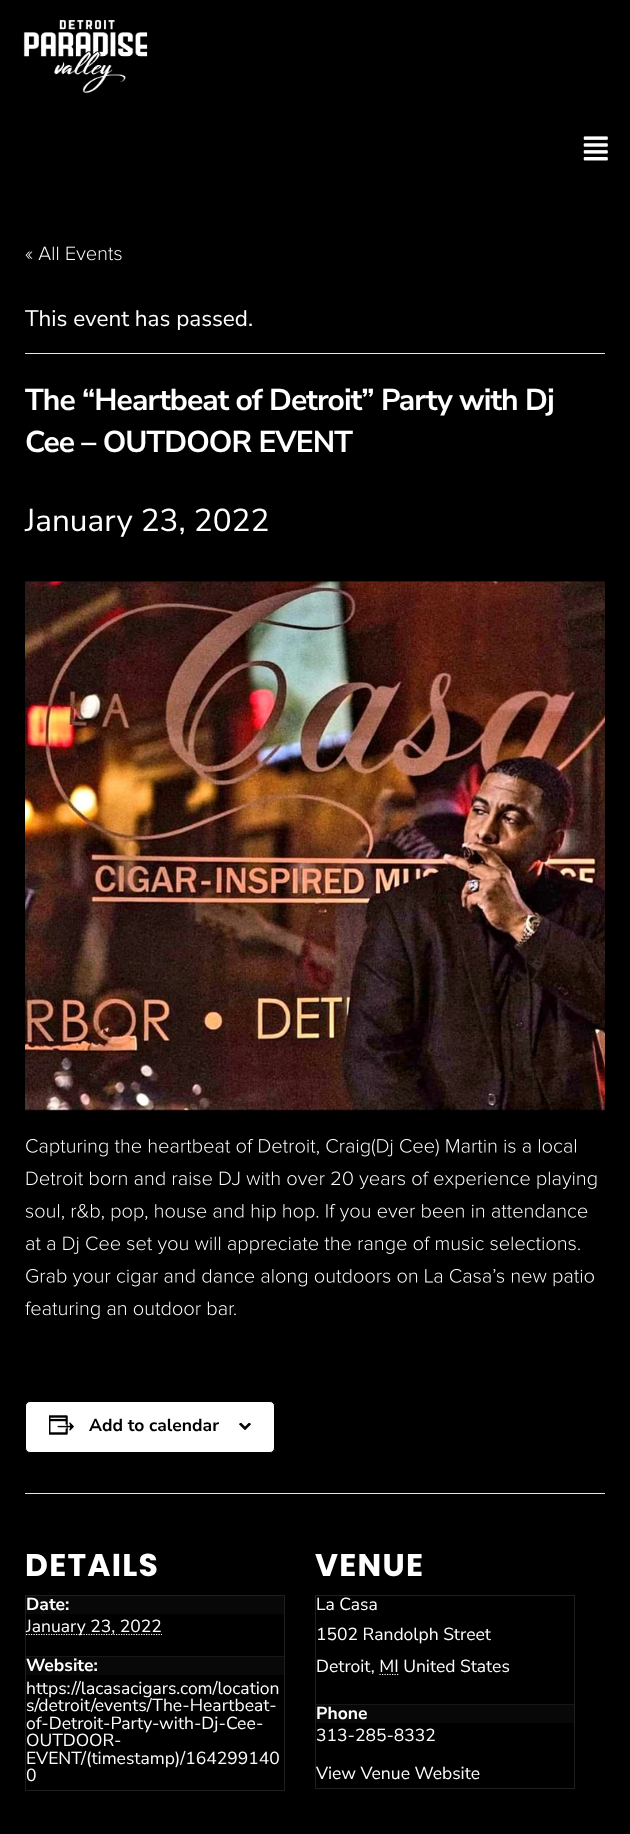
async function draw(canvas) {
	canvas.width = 630;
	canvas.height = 1834;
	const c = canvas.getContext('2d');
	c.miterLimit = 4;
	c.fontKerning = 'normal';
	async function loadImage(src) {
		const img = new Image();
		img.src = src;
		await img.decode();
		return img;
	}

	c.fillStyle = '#000';
	c.fillRect(0, 0, 630, 1834);
	c.drawImage(await loadImage('img1.png'), 23, 20, 125, 74);
	c.drawImage(await loadImage('img2.png'), 583, 136, 25, 25);
	c.drawImage(await loadImage('img3.png'), 25, 246, 97, 15);
	c.fillStyle = '#e4e4e4';
	c.fillRect(25, 353, 580, 1);
	c.font = '22.5px Nunito Sans';
	c.fillStyle = '#fff';
	c.fillText('This event has passed.', 25, 326);
	c.letterSpacing = '-0.9px';
	c.font = 'bold 30px Nunito Sans';
	c.fillText('The “Heartbeat of Detroit” Party with Dj', 25, 410);
	c.fillText('Cee – OUTDOOR EVENT', 25, 452);
	c.letterSpacing = '0px';
	c.font = '31.5px Nunito Sans';
	c.fillText('January 23, 2022', 25, 531);
	c.drawImage(await loadImage('img4.png'), 25, 581, 580, 531);
	c.drawImage(await loadImage('img5.png'), 26, 1138, 550, 19);
	c.drawImage(await loadImage('img6.png'), 26, 1171, 571, 18);
	c.drawImage(await loadImage('img7.png'), 25, 1204, 563, 18);
	c.drawImage(await loadImage('img8.png'), 26, 1236, 554, 18);
	c.drawImage(await loadImage('img9.png'), 26, 1268, 568, 19);
	c.drawImage(await loadImage('img10.png'), 25, 1301, 211, 18);
	c.beginPath();
	c.roundRect(25.5, 1401.5, 249, 51, 4.5);
	c.fill();
	c.strokeStyle = '#000';
	c.stroke();
	c.drawImage(await loadImage('img11.png'), 49, 1415, 25, 20);
	c.font = 'bold 17.5px Nunito Sans';
	c.fillStyle = '#000';
	c.fillText('Add to calendar', 89, 1431);
	c.drawImage(await loadImage('img12.png'), 239, 1423, 12, 7);
	c.fillStyle = '#e4e4e4';
	c.fillRect(25, 1493, 580, 1);
	c.letterSpacing = '1.25px';
	c.font = 'bold 31.5px Poppins';
	c.fillStyle = '#fff';
	c.fillText('DETAILS', 25, 1576);
	c.strokeStyle = '#1f1f1f';
	c.strokeRect(25.5, 1595.5, 259, 195);
	c.fillStyle = '#080808';
	c.fillRect(26, 1596, 258, 18);
	c.letterSpacing = '0px';
	c.font = 'bold 17.5px Nunito Sans';
	c.fillStyle = '#fff';
	c.fillText('Date:', 26, 1610);
	c.beginPath();
	c.moveTo(26, 1634.5);
	c.lineTo(162, 1634.5);
	c.strokeStyle = '#fff';
	c.lineWidth = 1.2;
	c.setLineDash([1.25, 1.25]);
	c.stroke();
	c.font = '17.5px Nunito Sans';
	c.fillText('January 23, 2022', 26, 1632);
	c.fillStyle = '#080808';
	c.fillRect(26, 1657, 258, 18);
	c.fillStyle = '#171717';
	c.fillRect(26, 1656, 258, 1);
	c.font = 'bold 17.5px Nunito Sans';
	c.fillStyle = '#fff';
	c.fillText('Website:', 26, 1671);
	c.font = '17.5px Nunito Sans';
	for (const [text, x, y] of [
		['https://lacasacigars.com/location', 26, 1694],
		['s/detroit/events/The-Heartbeat-', 26, 1711],
		['of-Detroit-Party-with-Dj-Cee-', 26, 1729],
		['OUTDOOR-', 26, 1746],
		['EVENT/(timestamp)/164299140', 26, 1764],
		['0', 26, 1781],
	]) {
		c.fillText(text, x, y);
	}
	c.letterSpacing = '1.25px';
	c.font = 'bold 31.5px Poppins';
	c.fillText('VENUE', 315, 1576);
	c.strokeStyle = '#1f1f1f';
	c.lineWidth = 1;
	c.setLineDash([]);
	c.strokeRect(315.5, 1595.5, 259, 193);
	c.letterSpacing = '0px';
	c.font = '17.5px Nunito Sans';
	for (const [text, x, y] of [
		['La Casa', 316, 1610],
		['1502 Randolph Street', 316, 1640],
		['Detroit, MI United States', 316, 1672],
	]) {
		c.fillText(text, x, y);
	}
	c.beginPath();
	c.moveTo(379.5, 1674.5);
	c.lineTo(399, 1674.5);
	c.strokeStyle = '#fff';
	c.lineWidth = 1.2;
	c.setLineDash([1.25, 1.25]);
	c.stroke();
	c.fillStyle = '#080808';
	c.fillRect(316, 1705, 258, 18);
	c.fillStyle = '#171717';
	c.fillRect(316, 1704, 258, 1);
	c.font = 'bold 17.5px Nunito Sans';
	c.fillStyle = '#fff';
	c.fillText('Phone', 316, 1719);
	c.font = '17.5px Nunito Sans';
	c.fillText('313-285-8332', 316, 1741);
	c.fillText('View Venue Website', 316, 1779);
}

draw(document.querySelector('canvas'));
